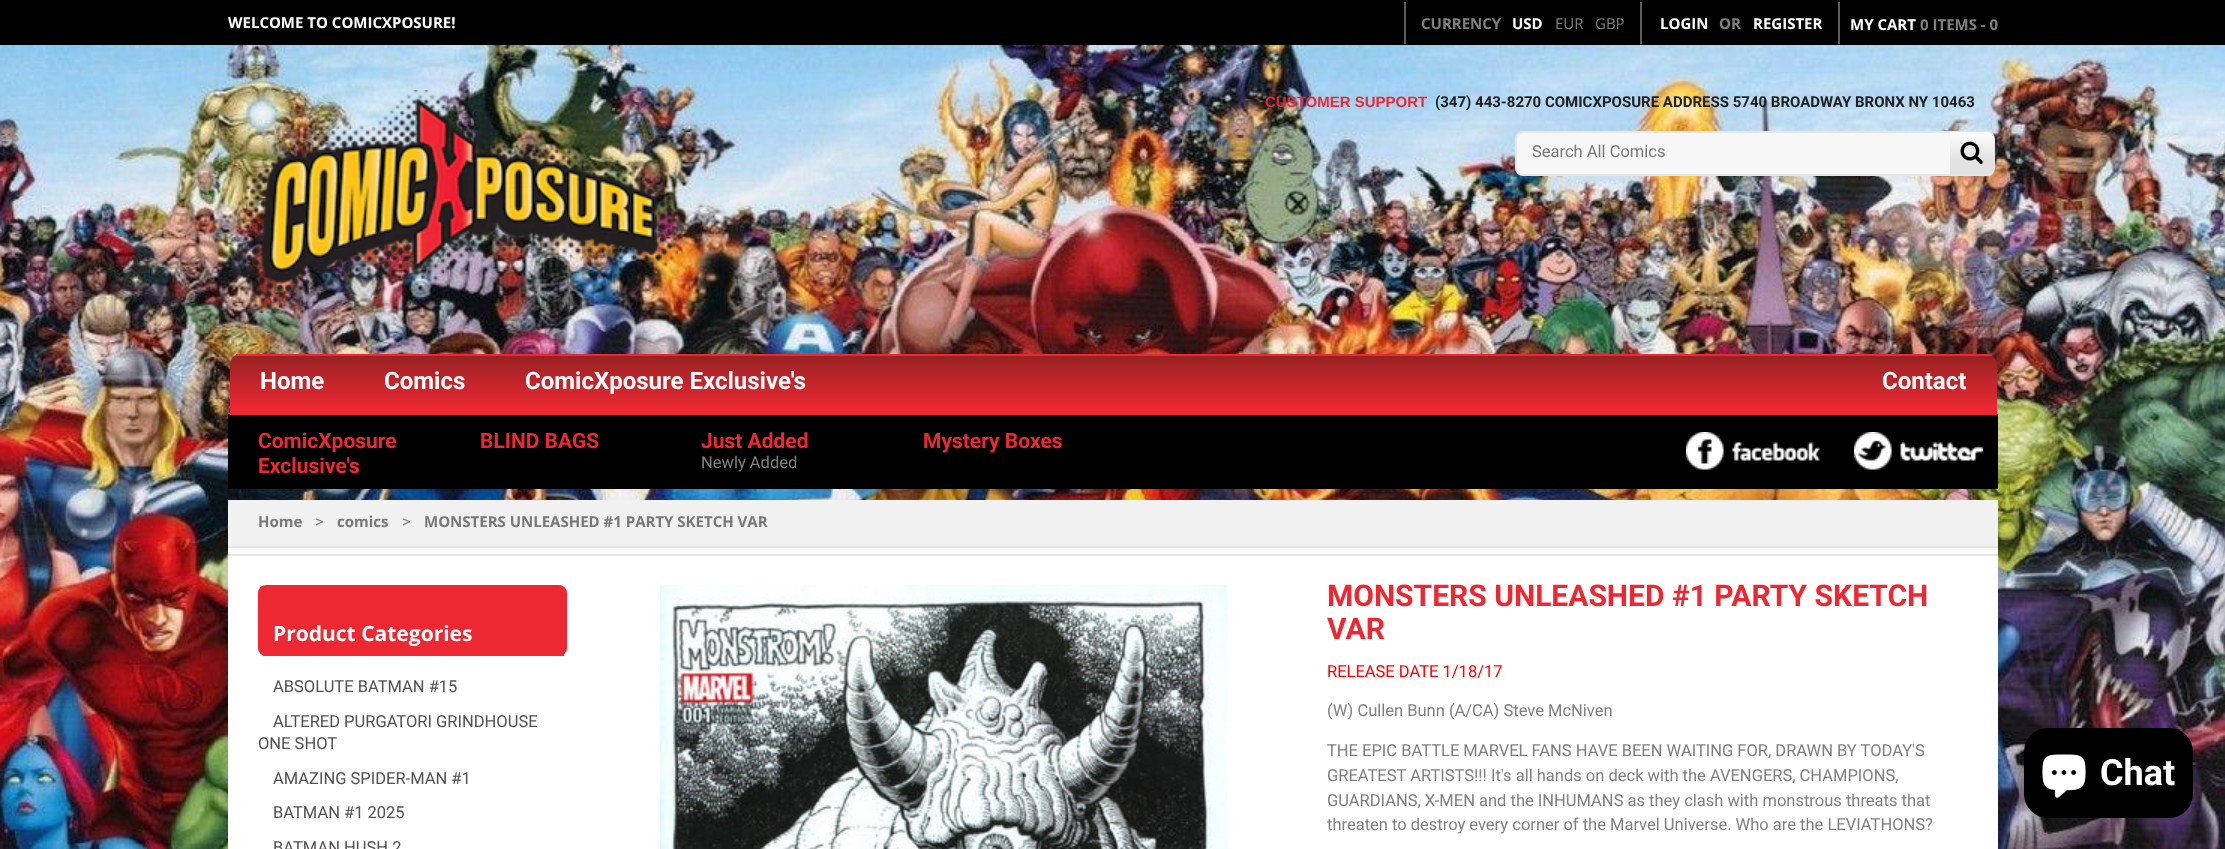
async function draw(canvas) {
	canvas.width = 2225;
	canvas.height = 849;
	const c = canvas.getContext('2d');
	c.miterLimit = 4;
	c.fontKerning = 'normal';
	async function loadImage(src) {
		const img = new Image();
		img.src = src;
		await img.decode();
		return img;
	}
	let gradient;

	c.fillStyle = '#fff';
	c.fillRect(0, 0, 2225, 849);
	c.drawImage(await loadImage('img1.png'), 0, 45, 2225, 804);
	c.fillStyle = '#000';
	c.fillRect(0, 0, 2225, 45);
	c.font = 'bold 15px Open Sans';
	c.fillStyle = '#fff';
	c.fillText('WELCOME TO COMICXPOSURE!', 228, 28);
	c.fillStyle = '#5d5d5d';
	c.fillRect(1640, 2, 2, 42);
	c.fillRect(1404, 2, 2, 42);
	c.fillStyle = '#818080';
	c.fillText('CURRENCY', 1421, 29);
	c.fillStyle = '#fff';
	c.fillText('USD', 1512, 29);
	c.font = '15px Open Sans';
	c.fillStyle = '#818080';
	c.fillText('EUR', 1555, 29);
	c.fillText('GBP', 1595, 29);
	c.fillStyle = '#5d5d5d';
	c.fillRect(1838, 2, 2, 42);
	c.font = 'bold 15px Open Sans';
	c.fillStyle = '#fff';
	c.fillText('LOGIN', 1660, 29);
	c.fillStyle = '#818080';
	c.fillText('OR', 1719, 29);
	c.fillStyle = '#fff';
	c.fillText('REGISTER', 1753, 29);
	c.fillText('MY CART', 1850, 30);
	c.fillStyle = '#818080';
	c.fillText('0 ITEMS - 0', 1920, 30);
	c.drawImage(await loadImage('img2.png'), 228, 90, 450, 224);
	c.font = 'bold 15px Liberation Sans';
	c.fillStyle = '#ee2833';
	c.fillText('CUSTOMER SUPPORT', 1265, 107);
	c.font = 'bold 15px Roboto';
	c.fillStyle = '#202020';
	c.fillText('(347) 443-8270 COMICXPOSURE ADDRESS 5740 BROADWAY BRONX NY 10463', 1435, 107);
	c.fillStyle = '#ffffff33';
	c.fillRect(1986, 95, 2, 15);
	c.fillStyle = '#f7f7f7';
	c.beginPath();
	c.roundRect(1516, 132, 478, 43, 7);
	c.fill();
	c.strokeStyle = '#e6e6e6';
	c.lineWidth = 2;
	c.stroke();
	c.font = '16.5px Roboto';
	c.fillStyle = '#787878';
	c.fillText('Search All Comics', 1532, 157);
	c.save();
	c.beginPath();
	c.roundRect(1517, 132, 477, 42, 6);
	c.clip();
	gradient = c.createLinearGradient(1972, 132, 1972, 177);
	gradient.addColorStop(0, '#fefefe');
	gradient.addColorStop(0.21, '#f5f5f5');
	gradient.addColorStop(0.62, '#e2e2e2');
	gradient.addColorStop(1, '#e2e2e2');
	c.fillStyle = gradient;
	c.beginPath();
	c.roundRect(1950, 132, 44, 45, [0, 8, 8, 0]);
	c.fill();
	c.restore();
	c.drawImage(await loadImage('img3.png'), 1960, 141, 23, 23);
	c.save();
	c.beginPath();
	c.roundRect(230, 354, 1767, 60, [11, 11, 0, 0]);
	c.clip();
	gradient = c.createLinearGradient(1113, 301, 1113, 356);
	gradient.addColorStop(0, '#962222');
	gradient.addColorStop(1, '#ee2833');
	c.fillStyle = gradient;
	c.fillRect(230, 355, 1767, 1);
	gradient = c.createLinearGradient(1113, 355, 1113, 410);
	gradient.addColorStop(0, '#962222');
	gradient.addColorStop(1, '#ee2833');
	c.fillStyle = gradient;
	c.fillRect(230, 356, 1767, 54);
	c.restore();
	for (const [x, y, w, h, color] of [
		[236, 354, 1756, 2, '#ee2833'],
		[228, 414, 1770, 75, '#000'],
		[230, 410, 1767, 5, '#ee2833'],
	]) {
		c.fillStyle = color;
		c.fillRect(x, y, w, h);
	}
	c.font = 'bold 24px Roboto';
	c.fillStyle = '#fff';
	for (const [text, x, y] of [
		['Home', 260, 389],
		['Comics', 384, 389],
		['ComicXposure Exclusive\'s', 525, 389],
		['Contact', 1882, 389],
	]) {
		c.fillText(text, x, y);
	}
	c.font = 'bold 21px Roboto';
	c.fillStyle = '#ee2833';
	for (const [text, x, y] of [
		['ComicXposure', 258, 448],
		['Exclusive\'s', 258, 473],
		['BLIND BAGS', 480, 448],
		['Just Added', 701, 448],
	]) {
		c.fillText(text, x, y);
	}
	c.font = '16.5px Roboto';
	c.fillStyle = '#818080';
	c.fillText('Newly Added', 701, 468);
	c.font = 'bold 21px Roboto';
	c.fillStyle = '#ee2833';
	c.fillText('Mystery Boxes', 923, 448);
	c.drawImage(await loadImage('img4.png'), 1686, 432, 134, 38);
	c.drawImage(await loadImage('img5.png'), 1854, 432, 129, 38);
	for (const [x, y, w, h, color] of [
		[228, 548, 1770, 301, '#fff'],
		[228, 554, 1770, 2, '#e5e5e5'],
		[228, 500, 1770, 46, '#f1f1f1'],
		[228, 546, 1770, 2, '#e5e5e5'],
	]) {
		c.fillStyle = color;
		c.fillRect(x, y, w, h);
	}
	c.font = 'bold 15px Open Sans';
	c.fillStyle = '#787878';
	c.fillText('Home', 258, 527);
	c.font = '16.5px Roboto';
	c.fillStyle = '#818080';
	c.fillText('>', 315, 527);
	c.font = 'bold 15px Open Sans';
	c.fillStyle = '#787878';
	c.fillText('comics', 337, 527);
	c.font = '16.5px Roboto';
	c.fillStyle = '#818080';
	c.fillText('>', 402, 527);
	c.font = 'bold 15px Open Sans';
	c.fillStyle = '#787878';
	c.fillText('MONSTERS UNLEASHED #1 PARTY SKETCH VAR', 424, 527);
	c.fillStyle = '#ee2833';
	c.beginPath();
	c.roundRect(258, 585, 309, 71, 8);
	c.fill();
	c.fillRect(263, 654, 301, 2);
	c.font = 'bold 21px Open Sans';
	c.fillStyle = '#fff';
	c.fillText('Product Categories', 273, 641);
	c.font = '16.5px Roboto';
	c.fillStyle = '#545054';
	for (const [text, x, y] of [
		['ABSOLUTE BATMAN #15', 273, 692],
		['ALTERED PURGATORI GRINDHOUSE', 273, 727],
		['ONE SHOT', 258, 749],
		['AMAZING SPIDER-MAN #1', 273, 784],
		['BATMAN #1 2025', 273, 818],
		['BATMAN HUSH 2', 273, 853],
	]) {
		c.fillText(text, x, y);
	}
	c.drawImage(await loadImage('img6.png'), 660, 585, 567, 264);
	c.font = 'bold 30px Roboto';
	c.fillStyle = '#ee2833';
	c.fillText('MONSTERS UNLEASHED #1 PARTY SKETCH', 1327, 606);
	c.fillText('VAR', 1327, 639);
	c.font = '16.5px Roboto';
	c.fillStyle = '#f00';
	c.fillText('RELEASE DATE 1/18/17', 1327, 677);
	c.fillStyle = '#818080';
	for (const [text, x, y] of [
		['(W) Cullen Bunn (A/CA) Steve McNiven', 1327, 716],
		['THE EPIC BATTLE MARVEL FANS HAVE BEEN WAITING FOR, DRAWN BY TODAY\'S', 1327, 756],
		['GREATEST ARTISTS!!! It\'s all hands on deck with the AVENGERS, CHAMPIONS,', 1327, 781],
		['GUARDIANS, X-MEN and the INHUMANS as they clash with monstrous threats that', 1327, 806],
		['threaten to destroy every corner of the Marvel Universe. Who are the LEVIATHONS?', 1327, 830],
	]) {
		c.fillText(text, x, y);
	}
	c.fillStyle = '#00000026';
	c.filter = 'blur(4px)';
	c.beginPath();
	c.roundRect(2024, 728, 169, 90, 24);
	c.fill();
	c.filter = 'none';
	c.fillStyle = '#000';
	c.beginPath();
	c.roundRect(2024, 728, 169, 90, 24);
	c.fill();
	c.drawImage(await loadImage('img7.png'), 2042, 754, 44, 44);
	c.font = 'bold 36px Roboto';
	c.fillStyle = '#fff';
	c.fillText('Chat', 2100, 785);
}

draw(document.querySelector('canvas'));
